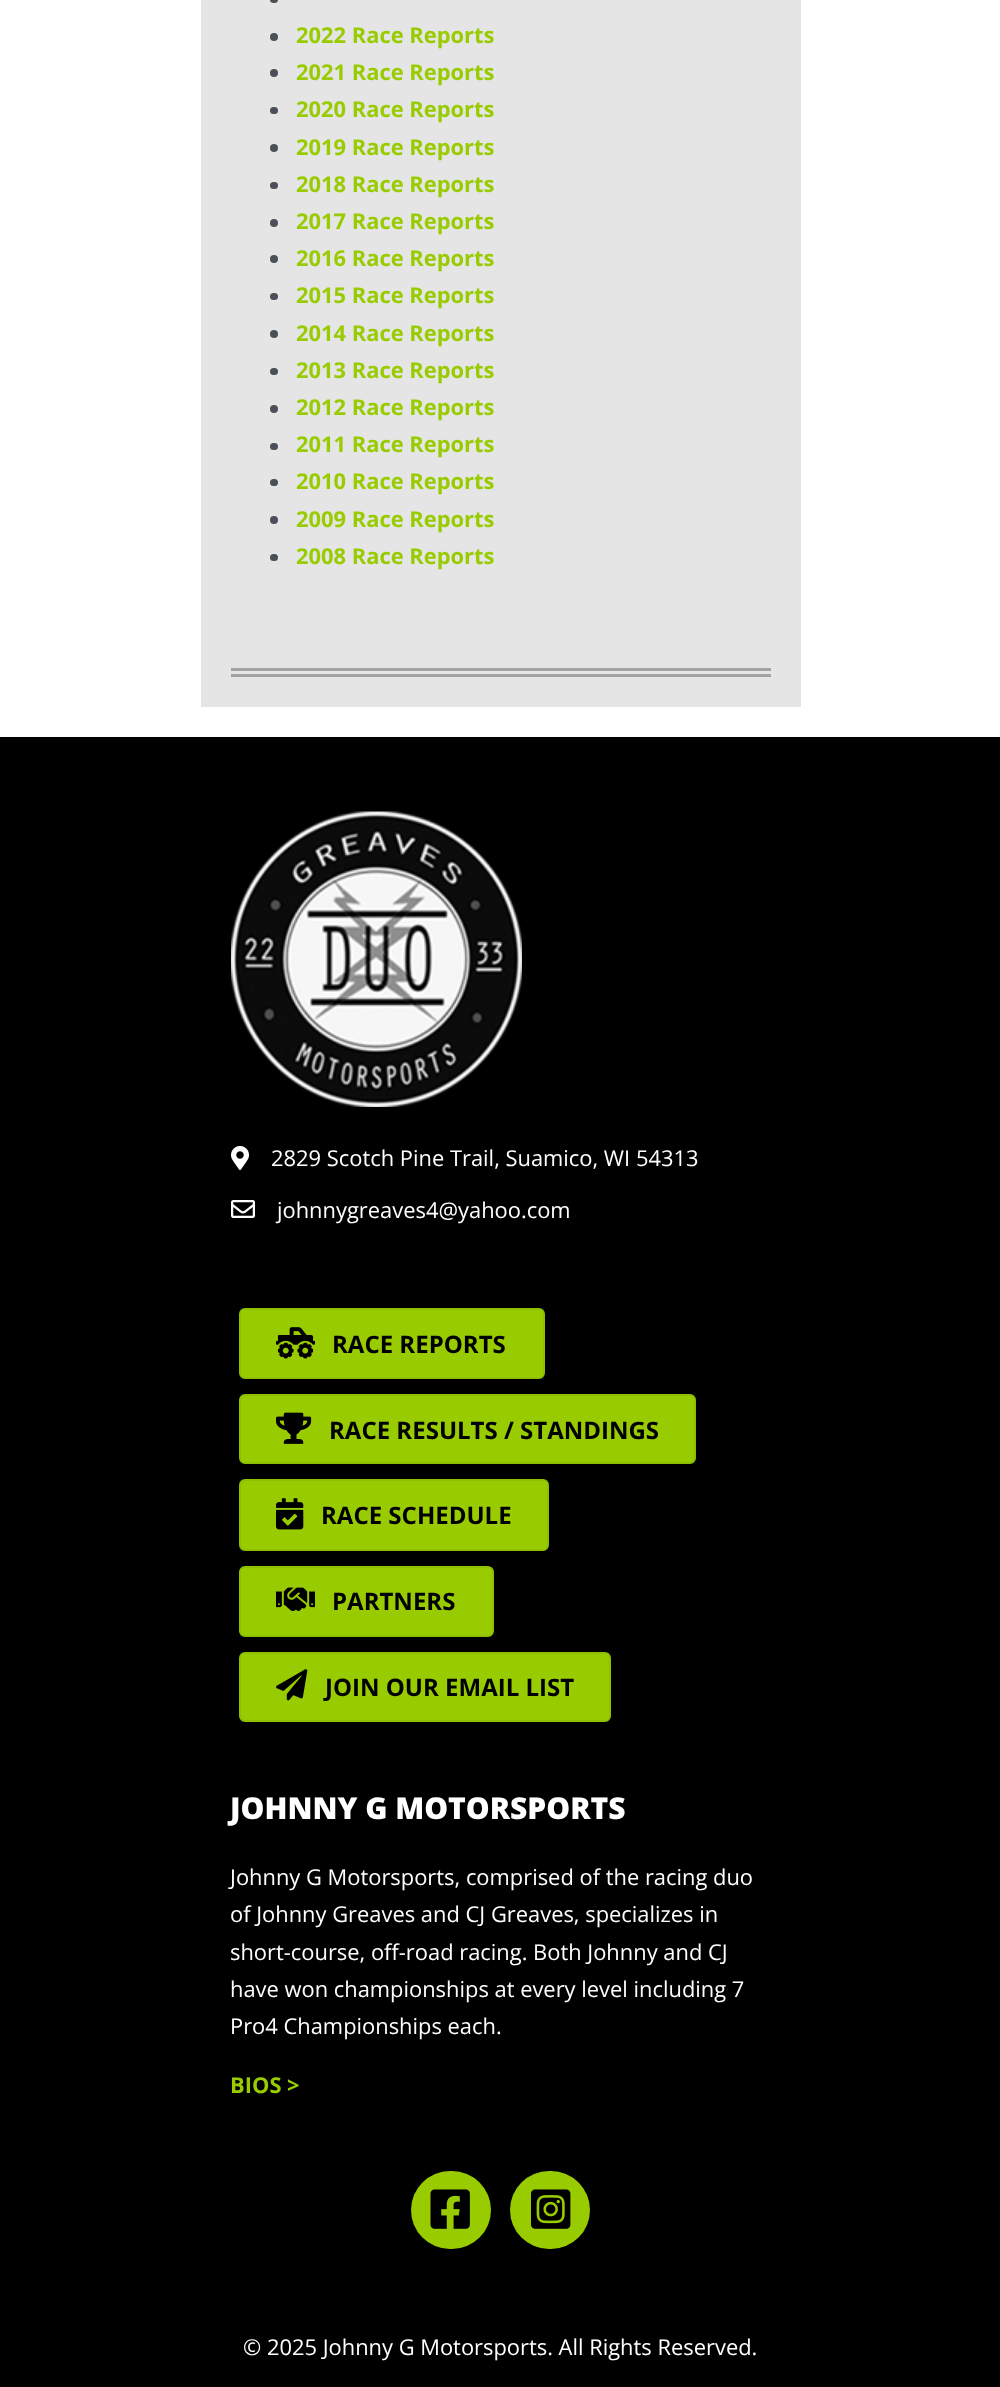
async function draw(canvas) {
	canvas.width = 1000;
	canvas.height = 2387;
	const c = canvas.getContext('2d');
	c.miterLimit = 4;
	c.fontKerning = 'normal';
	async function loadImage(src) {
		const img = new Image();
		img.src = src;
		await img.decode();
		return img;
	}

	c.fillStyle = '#fff';
	c.fillRect(0, 0, 1000, 2387);
	c.fillStyle = '#e5e5e5';
	c.fillRect(201, 0, 600, 707);
	c.fillStyle = '#4b4f58';
	c.beginPath();
	c.roundRect(270, -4, 8, 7, 3.5);
	c.fill();
	c.beginPath();
	c.arc(274, 37, 4, 0, 2 * Math.PI);
	c.fill();
	c.font = 'bold 21.9px Open Sans';
	c.fillStyle = '#9c0';
	c.fillText('2022 Race Reports', 296, 43);
	c.fillStyle = '#4b4f58';
	c.beginPath();
	c.arc(274, 73, 4, 0, 2 * Math.PI);
	c.fill();
	c.fillStyle = '#9c0';
	c.fillText('2021 Race Reports', 296, 80);
	c.fillStyle = '#4b4f58';
	c.beginPath();
	c.roundRect(270, 107, 8, 7, 3.5);
	c.fill();
	c.fillStyle = '#9c0';
	c.fillText('2020 Race Reports', 296, 117);
	c.fillStyle = '#4b4f58';
	c.beginPath();
	c.arc(274, 148, 4, 0, 2 * Math.PI);
	c.fill();
	c.fillStyle = '#9c0';
	c.fillText('2019 Race Reports', 296, 155);
	c.fillStyle = '#4b4f58';
	c.beginPath();
	c.roundRect(270, 182, 8, 7, 3.5);
	c.fill();
	c.fillStyle = '#9c0';
	c.fillText('2018 Race Reports', 296, 192);
	c.fillStyle = '#4b4f58';
	c.beginPath();
	c.arc(274, 223, 4, 0, 2 * Math.PI);
	c.fill();
	c.fillStyle = '#9c0';
	c.fillText('2017 Race Reports', 296, 229);
	c.fillStyle = '#4b4f58';
	c.beginPath();
	c.arc(274, 259, 4, 0, 2 * Math.PI);
	c.fill();
	c.fillStyle = '#9c0';
	c.fillText('2016 Race Reports', 296, 266);
	c.fillStyle = '#4b4f58';
	c.beginPath();
	c.roundRect(270, 293, 8, 7, 3.5);
	c.fill();
	c.fillStyle = '#9c0';
	c.fillText('2015 Race Reports', 296, 303);
	c.fillStyle = '#4b4f58';
	c.beginPath();
	c.arc(274, 334, 4, 0, 2 * Math.PI);
	c.fill();
	c.fillStyle = '#9c0';
	c.fillText('2014 Race Reports', 296, 341);
	c.fillStyle = '#4b4f58';
	c.beginPath();
	c.roundRect(270, 368, 8, 7, 3.5);
	c.fill();
	c.fillStyle = '#9c0';
	c.fillText('2013 Race Reports', 296, 378);
	c.fillStyle = '#4b4f58';
	c.beginPath();
	c.arc(274, 409, 4, 0, 2 * Math.PI);
	c.fill();
	c.fillStyle = '#9c0';
	c.fillText('2012 Race Reports', 296, 415);
	c.fillStyle = '#4b4f58';
	c.beginPath();
	c.roundRect(270, 443, 8, 7, 3.5);
	c.fill();
	c.fillStyle = '#9c0';
	c.fillText('2011 Race Reports', 296, 452);
	c.fillStyle = '#4b4f58';
	c.beginPath();
	c.roundRect(270, 479, 8, 7, 3.5);
	c.fill();
	c.fillStyle = '#9c0';
	c.fillText('2010 Race Reports', 296, 489);
	c.fillStyle = '#4b4f58';
	c.beginPath();
	c.arc(274, 520, 4, 0, 2 * Math.PI);
	c.fill();
	c.fillStyle = '#9c0';
	c.fillText('2009 Race Reports', 296, 527);
	c.fillStyle = '#4b4f58';
	c.beginPath();
	c.roundRect(270, 554, 8, 7, 3.5);
	c.fill();
	c.fillStyle = '#9c0';
	c.fillText('2008 Race Reports', 296, 564);
	for (const [x, y, w, h, color] of [
		[231, 668, 540, 3, '#a3a3a3'],
		[231, 674, 540, 3, '#a3a3a3'],
		[0, 737, 1000, 1650, '#000'],
	]) {
		c.fillStyle = color;
		c.fillRect(x, y, w, h);
	}
	c.drawImage(await loadImage('img1.png'), 231, 811, 291, 296);
	c.drawImage(await loadImage('img2.png'), 231, 1146, 18, 24);
	c.font = '21.9px Open Sans';
	c.fillStyle = '#fff';
	c.fillText('2829 Scotch Pine Trail, Suamico, WI 54313', 271, 1166);
	c.drawImage(await loadImage('img3.png'), 231, 1200, 24, 18);
	c.fillText('johnnygreaves4@yahoo.com', 277, 1218);
	c.fillStyle = '#9c0';
	c.beginPath();
	c.roundRect(240, 1309, 304, 69, 5);
	c.fill();
	c.strokeStyle = '#8dc000';
	c.lineWidth = 2;
	c.stroke();
	c.drawImage(await loadImage('img4.png'), 276, 1327, 39, 32);
	c.font = 'bold 24px Open Sans';
	c.fillStyle = '#000';
	c.fillText('RACE REPORTS', 332, 1353);
	c.fillStyle = '#9c0';
	c.beginPath();
	c.roundRect(240, 1395, 455, 68, 5);
	c.fill();
	c.stroke();
	c.drawImage(await loadImage('img5.png'), 276, 1412, 36, 32);
	c.fillStyle = '#000';
	c.fillText('RACE RESULTS / STANDINGS', 329, 1439);
	c.fillStyle = '#9c0';
	c.beginPath();
	c.roundRect(240, 1480, 308, 70, 5);
	c.fill();
	c.stroke();
	c.drawImage(await loadImage('img6.png'), 276, 1498, 28, 32);
	c.fillStyle = '#000';
	c.fillText('RACE SCHEDULE', 321, 1524);
	c.fillStyle = '#9c0';
	c.beginPath();
	c.roundRect(240, 1567, 253, 69, 5);
	c.fill();
	c.stroke();
	c.drawImage(await loadImage('img7.png'), 276, 1587, 39, 24);
	c.fillStyle = '#000';
	c.fillText('PARTNERS', 332, 1610);
	c.fillStyle = '#9c0';
	c.beginPath();
	c.roundRect(240, 1653, 370, 68, 5);
	c.fill();
	c.stroke();
	c.drawImage(await loadImage('img8.png'), 276, 1669, 32, 32);
	c.fillStyle = '#000';
	c.fillText('JOIN OUR EMAIL LIST', 325, 1696);
	c.font = '800 30px Open Sans';
	c.fillStyle = '#fff';
	c.fillText('JOHNNY G MOTORSPORTS', 230, 1819);
	c.font = '21.9px Open Sans';
	for (const [text, x, y] of [
		['Johnny G Motorsports, comprised of the racing duo', 230, 1885],
		['of Johnny Greaves and CJ Greaves, specializes in', 230, 1922],
		['short-course, off-road racing. Both Johnny and CJ', 230, 1960],
		['have won championships at every level including 7', 230, 1997],
		['Pro4 Championships each.', 230, 2034],
	]) {
		c.fillText(text, x, y);
	}
	c.font = 'bold 21.9px Open Sans';
	c.fillStyle = '#9c0';
	c.fillText('BIOS >', 230, 2093);
	c.beginPath();
	c.roundRect(411, 2171, 80, 78, 39);
	c.fill();
	c.drawImage(await loadImage('img9.png'), 430, 2189, 40, 40);
	c.beginPath();
	c.roundRect(510, 2171, 80, 78, 39);
	c.fill();
	c.drawImage(await loadImage('img10.png'), 531, 2189, 40, 40);
	c.font = '21.9px Open Sans';
	c.fillStyle = '#fff';
	c.fillText('© 2025 Johnny G Motorsports. All Rights Reserved.', 243, 2355);
}

draw(document.querySelector('canvas'));
